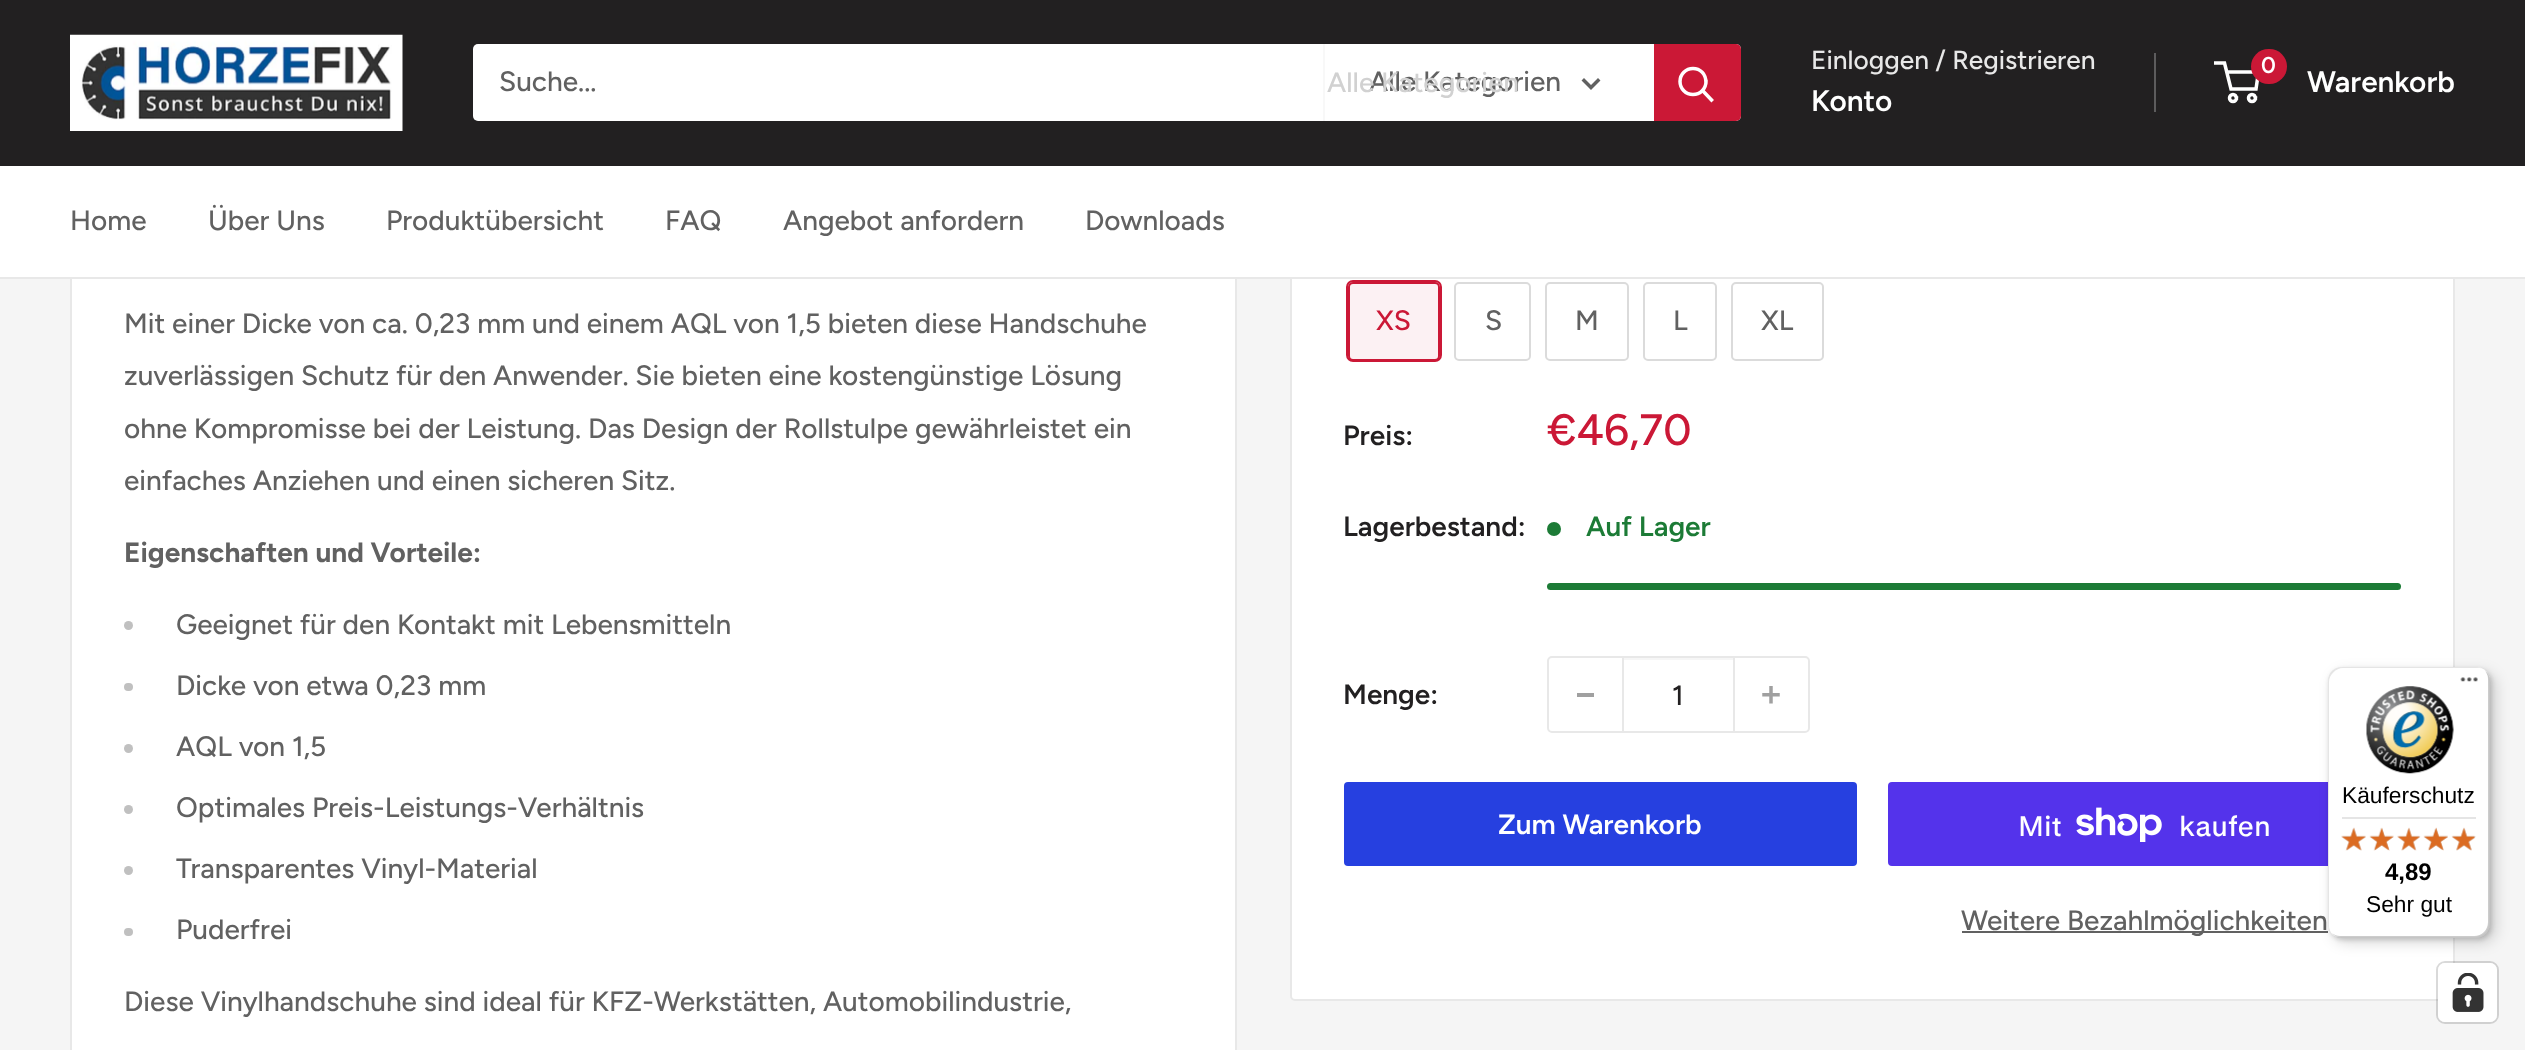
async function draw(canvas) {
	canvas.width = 2525;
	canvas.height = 1050;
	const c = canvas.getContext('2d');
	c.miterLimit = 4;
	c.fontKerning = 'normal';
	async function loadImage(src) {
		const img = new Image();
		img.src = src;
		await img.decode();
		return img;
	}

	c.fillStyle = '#f5f5f5';
	c.fillRect(0, 0, 2525, 1050);
	c.fillStyle = '#fff';
	c.fillRect(72, 279, 1163, 771);
	c.strokeStyle = '#e8e8e8';
	c.lineWidth = 2;
	c.strokeRect(71, -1, 1165, 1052);
	c.beginPath();
	c.roundRect(1291, -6, 1163, 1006, 4);
	c.fill();
	c.stroke();
	c.fillStyle = '#222021';
	c.fillRect(0, 0, 2525, 166);
	c.drawImage(await loadImage('img1.png'), 70, 34, 333, 97);
	c.fillStyle = '#fff';
	c.beginPath();
	c.roundRect(473, 44, 1268, 77, 5);
	c.fill();
	c.font = '500 28px Figtree';
	c.fillStyle = '#616161';
	c.fillText('Suche...', 499, 91);
	c.fillStyle = '#f8f8f8';
	c.fillRect(1323, 44, 2, 77);
	c.fillStyle = '#616161';
	c.fillText('Alle Kategorien', 1369, 91);
	c.beginPath();
	c.moveTo(1598, 80.5);
	c.lineTo(1591, 87.5);
	c.lineTo(1584, 80.5);
	c.strokeStyle = '#616161';
	c.lineWidth = 3.5;
	c.lineCap = 'square';
	c.stroke();
	c.fillStyle = '#d1d1d1';
	c.fillText('Alle Kategorien', 1327, 92);
	c.fillStyle = '#cb1836';
	c.beginPath();
	c.roundRect(1654, 44, 87, 77, [0, 5, 5, 0]);
	c.fill();
	c.beginPath();
	c.moveTo(1711.5, 100);
	c.lineTo(1703, 91);
	c.strokeStyle = '#fff';
	c.stroke();
	c.beginPath();
	c.arc(1693, 81.5, 13, 0, 2 * Math.PI);
	c.stroke();
	c.font = '500 26.25px Figtree';
	c.fillStyle = '#e8e8e8';
	c.fillText('Einloggen / Registrieren', 1811, 69);
	c.fillStyle = '#5d5c5d';
	c.fillRect(2154, 53, 2, 59);
	c.font = '600 29.75px Figtree';
	c.fillStyle = '#fff';
	c.fillText('Konto', 1811, 111);
	c.beginPath();
	c.arc(2233, 98, 3.5, 0, 2 * Math.PI);
	c.stroke();
	c.beginPath();
	c.arc(2252, 98, 3.5, 0, 2 * Math.PI);
	c.stroke();
	c.beginPath();
	c.moveTo(2226.5, 72);
	c.lineTo(2258.5, 72);
	c.lineTo(2256, 89);
	c.lineTo(2231, 89);
	c.lineTo(2224.5, 63);
	c.lineTo(2214, 63);
	c.lineCap = 'butt';
	c.stroke();
	c.fillStyle = '#cb1836';
	c.beginPath();
	c.roundRect(2251, 49, 36, 35, 17.5);
	c.fill();
	c.font = '600 23px Figtree';
	c.fillStyle = '#fff';
	c.fillText('0', 2261, 73);
	c.font = '600 29.75px Figtree';
	c.fillText('Warenkorb', 2307, 92);
	c.fillRect(0, 166, 2525, 111);
	c.fillStyle = '#e8e8e8';
	c.fillRect(0, 277, 2525, 2);
	c.font = '500 28px Figtree';
	c.fillStyle = '#616161';
	for (const [text, x, y] of [
		['Home', 70, 230],
		['Über Uns', 208, 230],
		['Produktübersicht', 386, 230],
		['FAQ', 665, 230],
		['Angebot anfordern', 783, 230],
		['Downloads', 1085, 230],
		['Mit einer Dicke von ca. 0,23 mm und einem AQL von 1,5 bieten diese Handschuhe', 124, 333],
		['zuverlässigen Schutz für den Anwender. Sie bieten eine kostengünstige Lösung', 124, 385],
		['ohne Kompromisse bei der Leistung. Das Design der Rollstulpe gewährleistet ein', 124, 438],
		['einfaches Anziehen und einen sicheren Sitz.', 124, 490],
	]) {
		c.fillText(text, x, y);
	}
	c.font = 'bold 28px Figtree';
	c.fillText('Eigenschaften und Vorteile:', 124, 562);
	c.fillStyle = '#c0c0c0';
	c.beginPath();
	c.arc(128.5, 625.5, 4.5, 0, 2 * Math.PI);
	c.fill();
	c.font = '500 28px Figtree';
	c.fillStyle = '#616161';
	c.fillText('Geeignet für den Kontakt mit Lebensmitteln', 176, 634);
	c.fillStyle = '#c0c0c0';
	c.beginPath();
	c.roundRect(124, 683, 9, 8, 4);
	c.fill();
	c.fillStyle = '#616161';
	c.fillText('Dicke von etwa 0,23 mm', 176, 695);
	c.fillStyle = '#c0c0c0';
	c.beginPath();
	c.arc(128.5, 748.5, 4.5, 0, 2 * Math.PI);
	c.fill();
	c.fillStyle = '#616161';
	c.fillText('AQL von 1,5', 176, 756);
	c.fillStyle = '#c0c0c0';
	c.beginPath();
	c.arc(128.5, 809.5, 4.5, 0, 2 * Math.PI);
	c.fill();
	c.fillStyle = '#616161';
	c.fillText('Optimales Preis-Leistungs-Verhältnis', 176, 817);
	c.fillStyle = '#c0c0c0';
	c.beginPath();
	c.arc(128.5, 870.5, 4.5, 0, 2 * Math.PI);
	c.fill();
	c.fillStyle = '#616161';
	c.fillText('Transparentes Vinyl-Material', 176, 878);
	c.fillStyle = '#c0c0c0';
	c.beginPath();
	c.roundRect(124, 928, 9, 8, 4);
	c.fill();
	c.fillStyle = '#616161';
	c.fillText('Puderfrei', 176, 939);
	c.fillText('Diese Vinylhandschuhe sind ideal für KFZ-Werkstätten, Automobilindustrie,', 124, 1011);
	c.beginPath();
	c.roundRect(1347, 281, 94, 80, 6);
	c.strokeStyle = '#cb1836';
	c.lineWidth = 2;
	c.stroke();
	c.fillStyle = '#cb18360f';
	c.fillRect(1348, 282, 92, 79);
	c.beginPath();
	c.roundRect(1349, 283, 90, 77, 4);
	c.stroke();
	c.fillStyle = '#cb1836';
	c.fillText('XS', 1376, 330);
	c.beginPath();
	c.roundRect(1455, 283, 75, 77, 4);
	c.strokeStyle = '#dbdbdb';
	c.stroke();
	c.fillStyle = '#616161';
	c.fillText('S', 1485, 330);
	c.beginPath();
	c.roundRect(1546, 283, 82, 77, 4);
	c.stroke();
	c.fillText('M', 1575, 330);
	c.beginPath();
	c.roundRect(1644, 283, 72, 77, 4);
	c.stroke();
	c.fillText('L', 1673, 330);
	c.beginPath();
	c.roundRect(1732, 283, 91, 77, 4);
	c.stroke();
	c.fillText('XL', 1761, 330);
	c.font = '600 28px Figtree';
	c.fillStyle = '#222021';
	c.fillText('Preis:', 1343, 445);
	c.font = '500 44px Figtree';
	c.fillStyle = '#cb1836';
	c.fillText('€46,70', 1547, 445);
	c.font = '600 28px Figtree';
	c.fillStyle = '#222021';
	c.fillText('Lagerbestand:', 1343, 536);
	c.fillStyle = '#1c7b36';
	c.beginPath();
	c.arc(1554, 529, 7, 0, 2 * Math.PI);
	c.fill();
	c.fillText('Auf Lager', 1586, 536);
	c.beginPath();
	c.roundRect(1547, 583, 854, 7, 3.5);
	c.fill();
	c.fillStyle = '#222021';
	c.fillText('Menge:', 1343, 704);
	c.beginPath();
	c.roundRect(1548, 657, 261, 75, 4);
	c.strokeStyle = '#e8e8e8';
	c.stroke();
	for (const [x, y, w, h, color] of [
		[1577, 693, 17, 4, '#a0a0a0'],
		[1624, 658, 109, 2, '#f6f6f6'],
		[1733, 658, 2, 74, '#e8e8e8'],
		[1622, 658, 2, 74, '#e8e8e8'],
	]) {
		c.fillStyle = color;
		c.fillRect(x, y, w, h);
	}
	c.font = '500 28px Figtree';
	c.fillStyle = '#222021';
	c.fillText('1', 1672, 705);
	c.drawImage(await loadImage('img2.png'), 1762, 686, 18, 18);
	c.fillStyle = '#2640e0';
	c.beginPath();
	c.roundRect(1344, 782, 513, 84, 4);
	c.fill();
	c.font = '600 28px Figtree';
	c.fillStyle = '#fff';
	c.fillText('Zum Warenkorb', 1498, 834);
	c.fillStyle = '#5433eb';
	c.beginPath();
	c.roundRect(1888, 782, 513, 84, 4);
	c.fill();
	c.font = '500 28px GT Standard';
	c.fillStyle = '#fff';
	c.fillText('Mit', 2018, 836);
	c.drawImage(await loadImage('img3.png'), 2076, 807, 86, 35);
	c.fillText('kaufen', 2179, 836);
	c.fillStyle = '#616161';
	c.fillRect(1962, 931, 366, 2);
	c.font = '500 28px Figtree';
	c.fillText('Weitere Bezahlmöglichkeiten', 1961, 930);
	c.beginPath();
	c.roundRect(2437, 962, 61, 61, 8);
	c.strokeStyle = '#00000026';
	c.stroke();
	c.fillStyle = '#fff';
	c.beginPath();
	c.roundRect(2438, 963, 59, 59, 7);
	c.fill();
	c.fillStyle = '#00000026';
	c.filter = 'blur(7px)';
	c.beginPath();
	c.roundRect(2333, 672, 163, 271, 14);
	c.fill();
	c.filter = 'none';
	c.filter = 'blur(2px)';
	c.beginPath();
	c.roundRect(2329, 669, 163, 271, 14);
	c.fill();
	c.filter = 'none';
	c.fillStyle = '#fff';
	c.beginPath();
	c.roundRect(2328, 667, 162, 271, 14);
	c.fill();
	c.fillStyle = '#0000001a';
	c.beginPath();
	c.moveTo(2343, 668);
	c.lineTo(2478, 668);
	c.bezierCurveTo(2480, 668, 2482, 668, 2483, 669);
	c.bezierCurveTo(2481, 668, 2479, 667, 2476, 667);
	c.lineTo(2342, 667);
	c.bezierCurveTo(2334, 667, 2328, 673, 2328, 681);
	c.lineTo(2328, 924);
	c.bezierCurveTo(2328, 927, 2329, 930, 2331, 933);
	c.bezierCurveTo(2330, 931, 2329, 928, 2329, 926);
	c.lineTo(2329, 682);
	c.bezierCurveTo(2329, 675, 2336, 668, 2343, 668);
	c.closePath();
	c.fill();
	c.fillStyle = '#00000033';
	c.beginPath();
	c.moveTo(2332, 933);
	c.bezierCurveTo(2334, 936, 2338, 938, 2342, 938);
	c.lineTo(2476, 938);
	c.bezierCurveTo(2484, 938, 2490, 932, 2490, 924);
	c.lineTo(2490, 681);
	c.bezierCurveTo(2490, 677, 2488, 673, 2485, 671);
	c.bezierCurveTo(2487, 673, 2488, 676, 2488, 679);
	c.lineTo(2488, 922);
	c.bezierCurveTo(2488, 930, 2482, 936, 2474, 936);
	c.lineTo(2340, 936);
	c.bezierCurveTo(2337, 936, 2334, 935, 2332, 933);
	c.closePath();
	c.fill();
	c.fillStyle = '#32323233';
	c.beginPath();
	c.moveTo(2334, 936);
	c.bezierCurveTo(2336, 937, 2339, 938, 2342, 938);
	c.lineTo(2476, 938);
	c.bezierCurveTo(2484, 938, 2490, 932, 2490, 924);
	c.lineTo(2490, 681);
	c.bezierCurveTo(2490, 677, 2489, 674, 2486, 672);
	c.bezierCurveTo(2488, 674, 2489, 677, 2489, 680);
	c.lineTo(2489, 923);
	c.bezierCurveTo(2489, 931, 2483, 937, 2475, 937);
	c.lineTo(2340, 937);
	c.bezierCurveTo(2338, 937, 2336, 937, 2334, 936);
	c.closePath();
	c.fill();
	c.fillStyle = '#ffffff4d';
	c.beginPath();
	c.moveTo(2333, 934);
	c.bezierCurveTo(2335, 937, 2338, 938, 2342, 938);
	c.lineTo(2476, 938);
	c.bezierCurveTo(2484, 938, 2490, 932, 2490, 924);
	c.lineTo(2490, 681);
	c.bezierCurveTo(2490, 677, 2489, 674, 2486, 672);
	c.bezierCurveTo(2488, 674, 2489, 677, 2489, 680);
	c.lineTo(2489, 923);
	c.bezierCurveTo(2489, 931, 2483, 937, 2475, 937);
	c.lineTo(2341, 937);
	c.bezierCurveTo(2338, 937, 2335, 936, 2333, 934);
	c.closePath();
	c.fill();
	c.drawImage(await loadImage('img4.png'), 2460, 677, 18, 5);
	c.drawImage(await loadImage('img5.png'), 2366, 686, 88, 88);
	c.font = '22.75px Liberation Sans';
	c.fillStyle = '#000';
	c.fillText('Käuferschutz', 2342, 803);
	c.fillStyle = '#e5e5e5';
	c.fillRect(2342, 817, 134, 2);
	c.drawImage(await loadImage('img11.png'), 2341, 828, 25, 23);
	c.drawImage(await loadImage('img6.png'), 2341, 827, 25, 24);
	c.drawImage(await loadImage('img12.png'), 2370, 828, 24, 23);
	c.drawImage(await loadImage('img7.png'), 2369, 827, 25, 24);
	c.drawImage(await loadImage('img13.png'), 2397, 828, 23, 23);
	c.drawImage(await loadImage('img8.png'), 2397, 827, 24, 24);
	c.drawImage(await loadImage('img14.png'), 2424, 828, 24, 22);
	c.drawImage(await loadImage('img9.png'), 2423, 827, 25, 24);
	c.drawImage(await loadImage('img15.png'), 2452, 828, 24, 23);
	c.drawImage(await loadImage('img10.png'), 2451, 827, 24, 24);
	c.font = 'bold 24px Liberation Sans';
	c.fillStyle = '#000';
	c.fillText('4,89', 2385, 880);
	c.font = '22.75px Liberation Sans';
	c.fillText('Sehr gut', 2366, 912);
	c.drawImage(await loadImage('img16.png'), 2452, 973, 32, 39);
}

draw(document.querySelector('canvas'));
